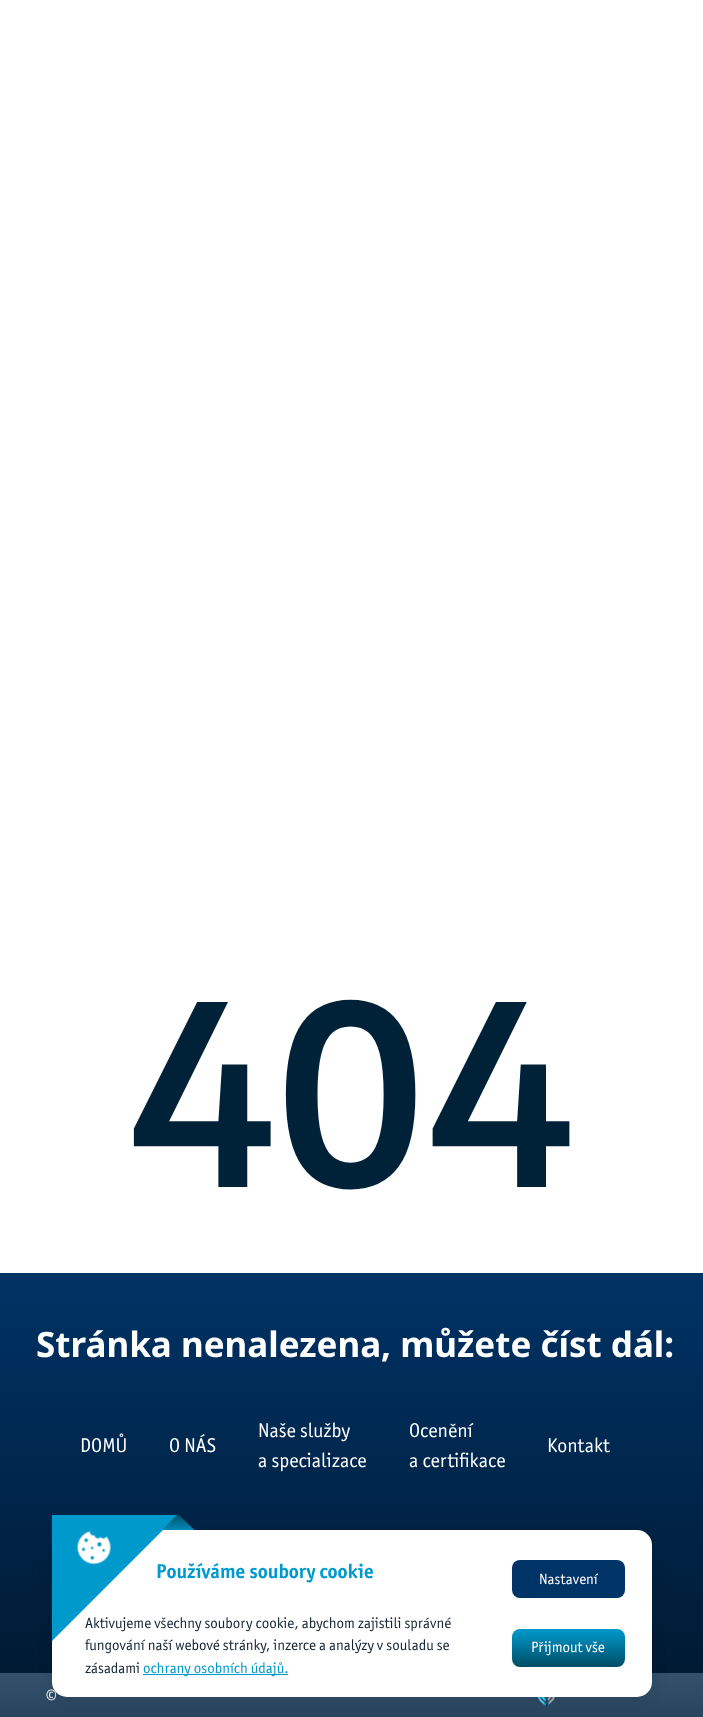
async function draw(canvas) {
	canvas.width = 703;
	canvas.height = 1717;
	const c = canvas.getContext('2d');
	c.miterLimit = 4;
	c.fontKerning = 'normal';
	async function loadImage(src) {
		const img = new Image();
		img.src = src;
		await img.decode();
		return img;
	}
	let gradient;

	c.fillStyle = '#fff';
	c.fillRect(0, 0, 703, 1717);
	c.font = '600 250px Encode Sans Semi Condensed';
	c.fillStyle = '#002239';
	c.fillText('404', 129, 1187);
	gradient = c.createLinearGradient(352, 1273, 352, 1673);
	gradient.addColorStop(0, '#036');
	gradient.addColorStop(1, '#001a33');
	c.fillStyle = gradient;
	c.fillRect(0, 1273, 703, 400);
	c.font = 'bold 35px Noto Sans';
	c.fillStyle = '#fff';
	c.fillText('Stránka nenalezena, můžete číst dál:', 36, 1357);
	c.font = '20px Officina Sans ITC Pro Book';
	for (const [text, x, y] of [
		['DOMŮ', 80, 1452],
		['O NÁS', 169, 1452],
		['Naše služby', 258, 1437],
		['a specializace', 258, 1467],
		['Ocenění', 409, 1437],
		['a certifikace', 409, 1467],
		['Kontakt', 547, 1452],
	]) {
		c.fillText(text, x, y);
	}
	gradient = c.createLinearGradient(352, 1673, 352, 1717);
	gradient.addColorStop(0, '#34516c');
	gradient.addColorStop(1, '#29445d');
	c.fillStyle = gradient;
	c.fillRect(0, 1673, 703, 44);
	c.drawImage(await loadImage('img2.png'), 537, 1697, 18, 10);
	c.fillStyle = '#0000001a';
	c.filter = 'blur(7.5px)';
	c.beginPath();
	c.roundRect(52, 1530, 600, 167, 15);
	c.fill();
	c.filter = 'none';
	c.fillStyle = '#fff';
	c.beginPath();
	c.roundRect(52, 1530, 600, 167, 15);
	c.fill();
	c.font = '15px Officina Sans ITC Pro Book';
	c.fillStyle = '#162333';
	c.fillText('Aktivujeme všechny soubory cookie, abychom zajistili správné', 85, 1628);
	c.fillText('fungování naší webové stránky, inzerce a analýzy v souladu se', 85, 1650);
	c.save();
	c.beginPath();
	c.rect(52, 1515, 170, 150);
	c.clip();
	c.fillStyle = '#09c';
	c.beginPath();
	c.moveTo(37, 1344);
	c.lineTo(193, 1500);
	c.lineTo(37, 1656);
	c.lineTo(-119, 1500);
	c.closePath();
	c.fill();
	c.restore();
	c.drawImage(await loadImage('img1.png'), 77, 1531, 34, 34);
	c.save();
	c.beginPath();
	c.rect(52, 1515, 170, 15);
	c.clip();
	gradient = c.createLinearGradient(178, 1585, 178, 1514);
	gradient.addColorStop(0, '#09c');
	gradient.addColorStop(0.72, '#09c');
	gradient.addColorStop(1, '#004d66');
	c.fillStyle = gradient;
	c.beginPath();
	c.moveTo(178, 1514);
	c.lineTo(214, 1549);
	c.lineTo(178, 1585);
	c.lineTo(143, 1549);
	c.closePath();
	c.fill();
	c.restore();
	c.font = 'bold 20px Officina Sans ITC Pro Book';
	c.fillStyle = '#09c';
	c.fillText('Používáme soubory cookie', 156, 1578);
	c.fillStyle = '#036';
	c.beginPath();
	c.roundRect(512, 1560, 113, 38, 8);
	c.fill();
	c.font = '15px Officina Sans ITC Pro Book';
	c.fillStyle = '#fff';
	c.fillText('Nastavení', 539, 1584);
	gradient = c.createLinearGradient(569, 1629, 569, 1667);
	gradient.addColorStop(0, '#09c');
	gradient.addColorStop(1, '#004d66');
	c.fillStyle = gradient;
	c.beginPath();
	c.roundRect(512, 1629, 113, 38, 8);
	c.fill();
	c.fillStyle = '#fff';
	c.fillText('Přijmout vše', 531, 1652);
	c.fillStyle = '#162333';
	c.fillText('zásadami', 85, 1673);
	c.fillStyle = '#09c';
	c.fillRect(143, 1674, 145, 1);
	c.fillText('ochrany osobních údajů.', 143, 1673);
	c.fillStyle = '#fff';
	c.fillText('©', 46, 1700);
}

draw(document.querySelector('canvas'));
